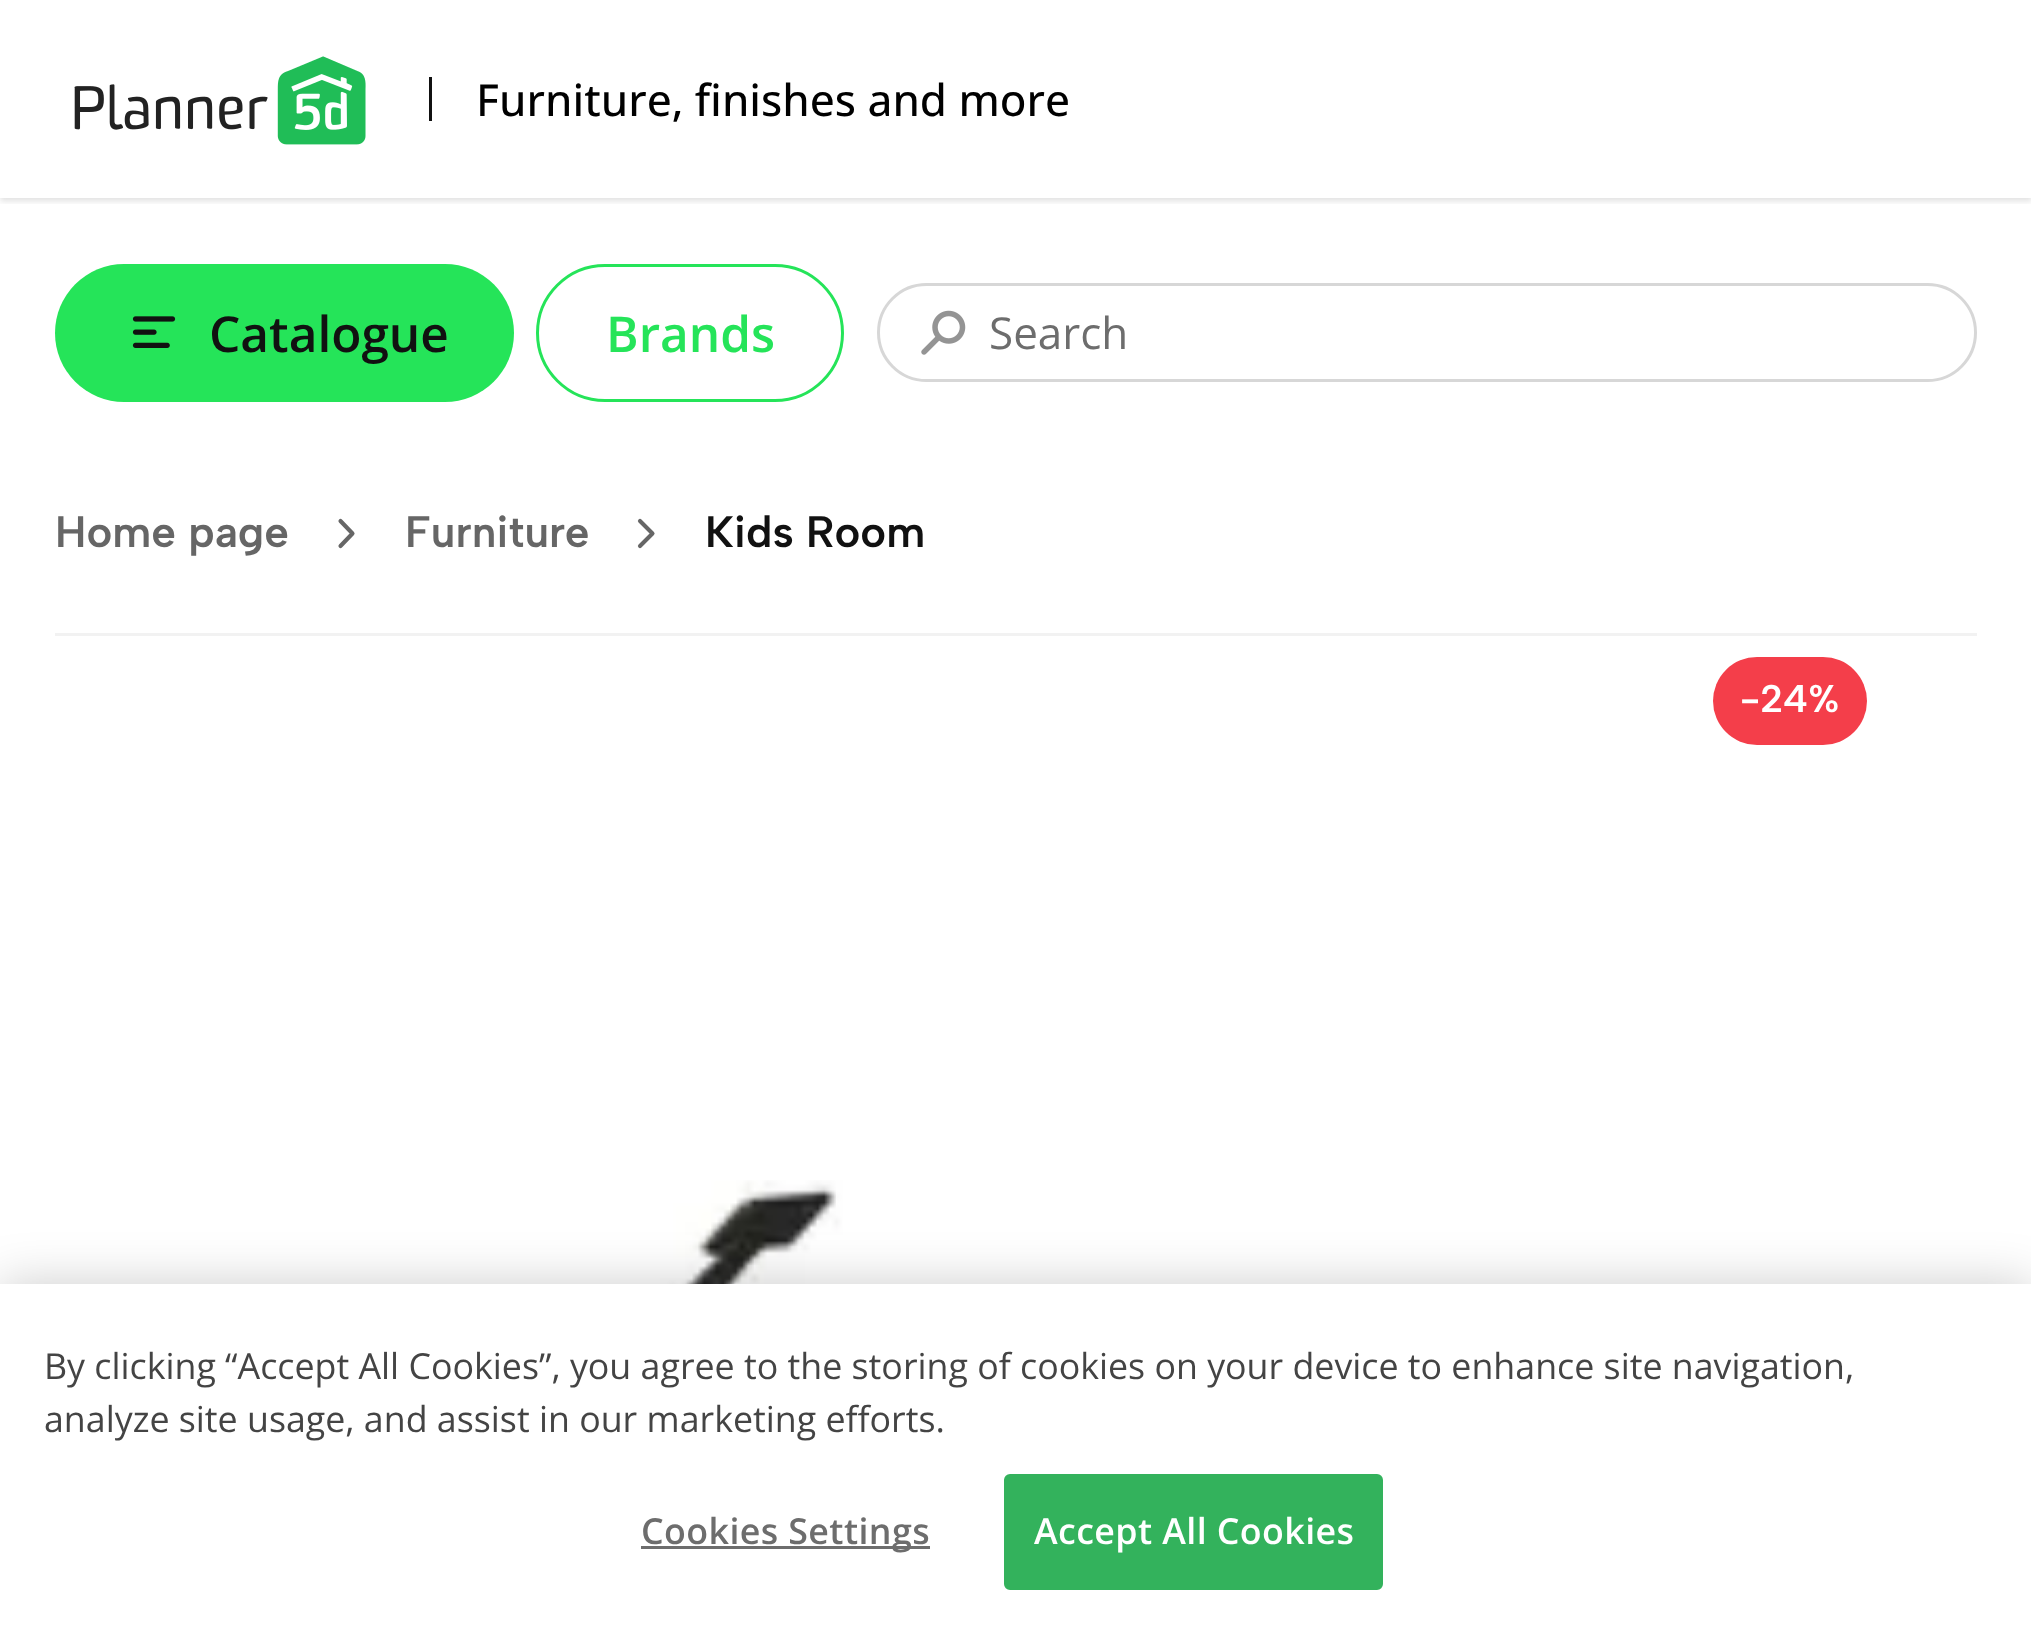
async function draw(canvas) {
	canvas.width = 2031;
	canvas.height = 1632;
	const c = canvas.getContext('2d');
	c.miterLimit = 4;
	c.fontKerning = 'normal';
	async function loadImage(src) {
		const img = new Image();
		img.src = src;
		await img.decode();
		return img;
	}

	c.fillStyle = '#fff';
	c.fillRect(0, 0, 2031, 1632);
	c.save();
	c.beginPath();
	c.rect(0, 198, 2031, 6);
	c.clip();
	c.fillStyle = '#0000001f';
	c.filter = 'blur(3px)';
	c.beginPath();
	c.rect(0, 3, 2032, 198);
	c.fill();
	c.filter = 'none';
	c.restore();
	c.drawImage(await loadImage('img1.png'), 74, 56, 292, 89);
	c.fillStyle = '#111';
	c.fillRect(429, 77, 3, 44);
	c.font = '500 44px Open Sans';
	c.fillStyle = '#000';
	c.fillText('Furniture, finishes and more', 476, 116);
	c.fillStyle = '#25e459';
	c.beginPath();
	c.roundRect(55, 264, 459, 138, 69);
	c.fill();
	c.drawImage(await loadImage('img2.png'), 132, 316, 44, 32);
	c.font = '600 49.5px Open Sans';
	c.fillStyle = '#111';
	c.fillText('Catalogue', 209, 352);
	c.beginPath();
	c.roundRect(537.5, 265.5, 305, 135, 67.5);
	c.strokeStyle = '#25e459';
	c.lineWidth = 3;
	c.stroke();
	c.fillStyle = '#25e459';
	c.fillText('Brands', 606, 352);
	c.beginPath();
	c.roundRect(878.5, 284.5, 1097, 96, 48);
	c.strokeStyle = '#d7d7d7';
	c.stroke();
	c.drawImage(await loadImage('img3.png'), 921, 310, 45, 45);
	c.font = '44px Open Sans';
	c.fillStyle = '#6d6d6d';
	c.fillText('Search', 989, 349);
	c.fillStyle = '#f2f2f2';
	c.fillRect(55, 633, 1922, 3);
	c.font = '600 44px Albert Sans';
	c.fillStyle = '#666';
	c.fillText('Home page', 55, 547);
	c.beginPath();
	c.moveTo(340.5, 521);
	c.lineTo(352.5, 533.5);
	c.lineTo(340.5, 546);
	c.strokeStyle = '#666';
	c.lineWidth = 4.1;
	c.lineCap = 'round';
	c.lineJoin = 'round';
	c.stroke();
	c.fillText('Furniture', 405, 547);
	c.beginPath();
	c.moveTo(640, 521);
	c.lineTo(652.5, 533.5);
	c.lineTo(640, 546);
	c.stroke();
	c.fillStyle = '#111';
	c.fillText('Kids Room', 705, 547);
	c.fillStyle = '#f43e4a';
	c.beginPath();
	c.roundRect(1713, 657, 154, 88, 44);
	c.fill();
	c.font = '600 38.5px Albert Sans';
	c.fillStyle = '#fff';
	c.fillText('-24%', 1740, 712);
	c.drawImage(await loadImage('img4.png'), 285, 1180, 1513, 104);
	c.fillStyle = '#00000033';
	c.filter = 'blur(25px)';
	c.beginPath();
	c.rect(0, 1284, 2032, 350);
	c.fill();
	c.filter = 'none';
	c.fillStyle = '#fff';
	c.fillRect(0, 1284, 2031, 348);
	c.font = '35.77px Open Sans';
	c.fillStyle = '#444';
	c.fillText('By clicking “Accept All Cookies”, you agree to the storing of cookies on your device to enhance site navigation,', 44, 1379);
	c.fillText('analyze site usage, and assist in our marketing efforts.', 44, 1432);
	c.fillStyle = '#6d6d6d';
	c.fillRect(641, 1546, 289, 3);
	c.letterSpacing = '0.4px';
	c.font = '600 35.77px Open Sans';
	c.fillText('Cookies Settings', 641, 1544);
	c.fillStyle = '#33b25c';
	c.beginPath();
	c.roundRect(1005.5, 1475.5, 376, 113, 4.5);
	c.fill();
	c.strokeStyle = '#33b25c';
	c.lineWidth = 3;
	c.lineJoin = 'miter';
	c.stroke();
	c.fillStyle = '#fff';
	c.fillText('Accept All Cookies', 1034, 1544);
}

draw(document.querySelector('canvas'));
